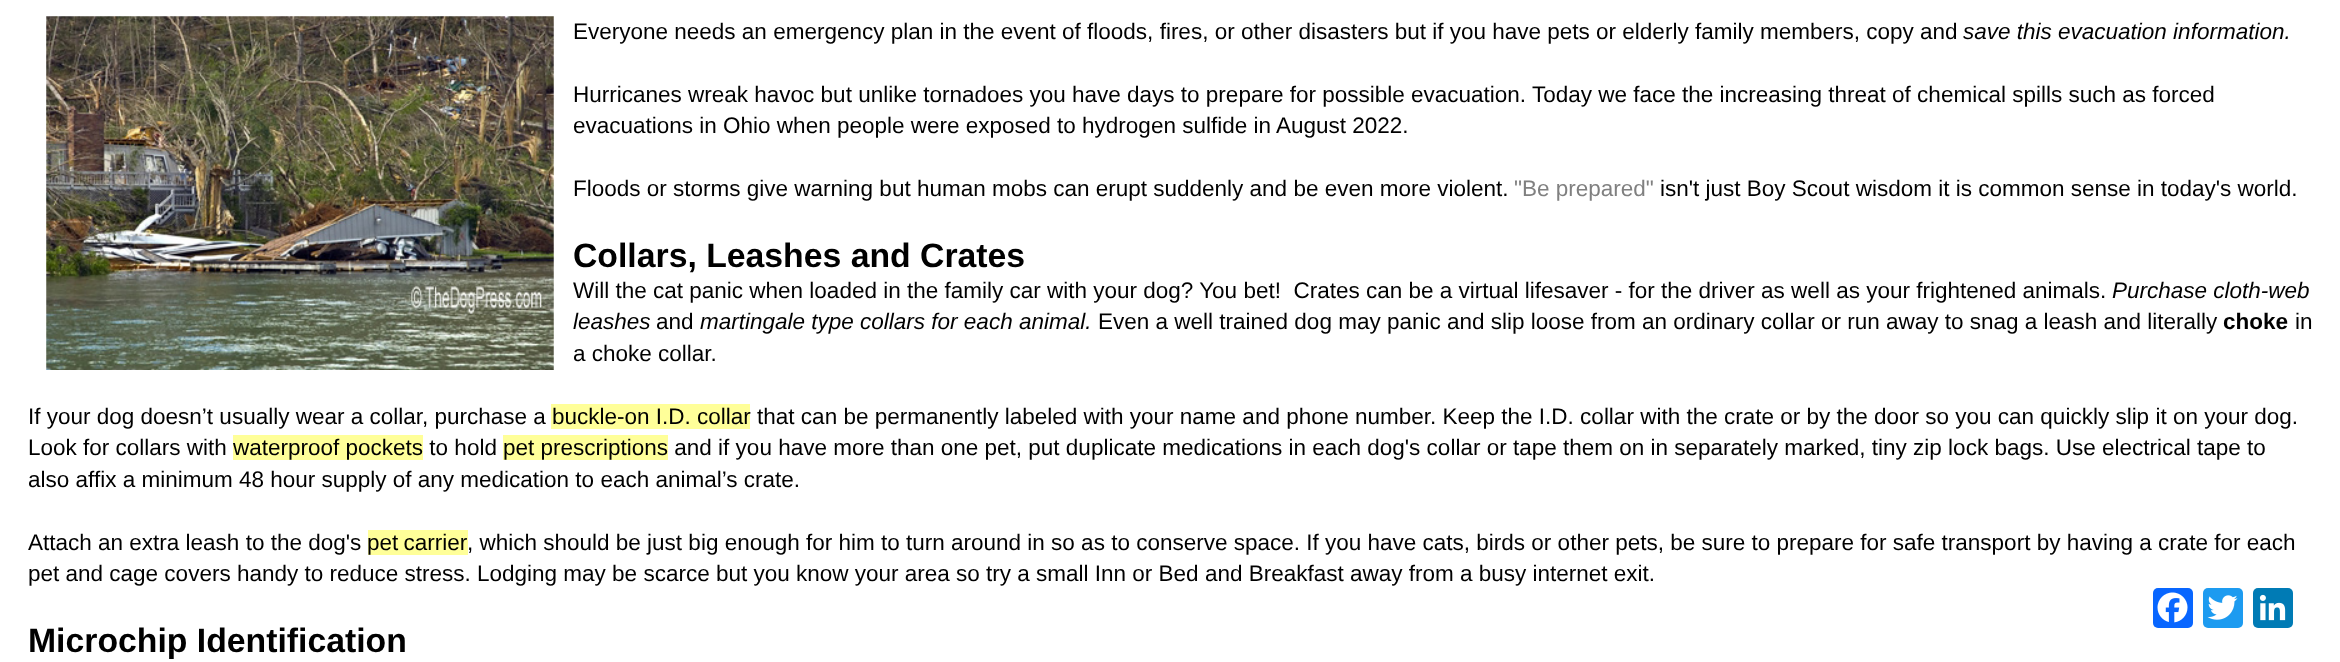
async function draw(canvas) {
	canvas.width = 2340;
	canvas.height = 662;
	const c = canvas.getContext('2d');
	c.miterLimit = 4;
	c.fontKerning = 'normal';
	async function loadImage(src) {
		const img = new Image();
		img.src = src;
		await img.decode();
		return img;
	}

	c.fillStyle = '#fff';
	c.fillRect(0, 0, 2340, 662);
	c.drawImage(await loadImage('img1.png'), 46, 16, 508, 354);
	c.font = '22.5px Liberation Sans';
	c.fillStyle = '#000';
	c.fillText('Everyone needs an emergency plan in the event of floods, fires, or other disasters but if you have pets or elderly family members, copy and', 573, 39);
	c.font = 'italic 22.5px Liberation Sans';
	c.fillText('save this evacuation information.', 1963, 39);
	c.font = '22.5px Liberation Sans';
	for (const [text, x, y] of [
		['Hurricanes wreak havoc but unlike tornadoes you have days to prepare for possible evacuation. Today we face the increasing threat of chemical spills such as forced', 573, 102],
		['evacuations in Ohio when people were exposed to hydrogen sulfide in August 2022.', 573, 133],
		['Floods or storms give warning but human mobs can erupt suddenly and be even more violent.', 573, 196],
	]) {
		c.fillText(text, x, y);
	}
	c.fillStyle = '#808080';
	c.fillText('"Be prepared"', 1514, 196);
	c.fillStyle = '#000';
	c.fillText('isn\'t just Boy Scout wisdom it is common sense in today\'s world.', 1660, 196);
	c.font = 'bold 33.75px Liberation Sans';
	c.fillText('Collars, Leashes and Crates', 573, 267);
	c.font = '22.5px Liberation Sans';
	c.fillText('Will the cat panic when loaded in the family car with your dog? You bet!  Crates can be a virtual lifesaver - for the driver as well as your frightened animals.', 573, 298);
	c.font = 'italic 22.5px Liberation Sans';
	c.fillText('Purchase cloth-web', 2112, 298);
	c.fillText('leashes', 573, 329);
	c.font = '22.5px Liberation Sans';
	c.fillText('and', 656, 329);
	c.font = 'italic 22.5px Liberation Sans';
	c.fillText('martingale type collars for each animal.', 700, 329);
	c.font = '22.5px Liberation Sans';
	c.fillText('Even a well trained dog may panic and slip loose from an ordinary collar or run away to snag a leash and literally', 1098, 329);
	c.font = 'bold 22.5px Liberation Sans';
	c.fillText('choke', 2223, 329);
	c.font = '22.5px Liberation Sans';
	for (const [text, x, y] of [
		['in', 2295, 329],
		['a choke collar.', 573, 361],
		['If your dog doesn’t usually wear a collar, purchase a', 28, 424],
	]) {
		c.fillText(text, x, y);
	}
	c.fillStyle = '#ff9';
	c.fillRect(551, 404, 199, 25);
	c.fillStyle = '#000';
	c.fillText('buckle-on I.D. collar that can be permanently labeled with your name and phone number. Keep the I.D. collar with the crate or by the door so you can quickly slip it on your dog.', 552, 424);
	c.fillText('Look for collars with', 28, 455);
	c.fillStyle = '#ff9';
	c.fillRect(233, 435, 190, 25);
	c.fillStyle = '#000';
	c.fillText('waterproof pockets to hold', 233, 455);
	c.fillStyle = '#ff9';
	c.fillRect(503, 435, 165, 25);
	c.fillStyle = '#000';
	for (const [text, x, y] of [
		['pet prescriptions and if you have more than one pet, put duplicate medications in each dog\'s collar or tape them on in separately marked, tiny zip lock bags. Use electrical tape to', 503, 455],
		['also affix a minimum 48 hour supply of any medication to each animal’s crate.', 28, 487],
		['Attach an extra leash to the dog\'s', 28, 550],
	]) {
		c.fillText(text, x, y);
	}
	c.fillStyle = '#ff9';
	c.fillRect(368, 530, 100, 25);
	c.wordSpacing = '-1px';
	c.fillStyle = '#000';
	c.fillText('pet carrier', 367, 550);
	c.wordSpacing = '0px';
	c.fillText(', which should be just big enough for him to turn around in so as to conserve space. If you have cats, birds or other pets, be sure to prepare for safe transport by having a crate for each', 467, 550);
	c.fillText('pet and cage covers handy to reduce stress. Lodging may be scarce but you know your area so try a small Inn or Bed and Breakfast away from a busy internet exit.', 28, 581);
	c.font = 'bold 33.75px Liberation Sans';
	c.fillText('Microchip Identification', 28, 652);
	c.fillStyle = '#0866ff';
	c.beginPath();
	c.roundRect(2153, 588, 40, 40, 5);
	c.fill();
	c.drawImage(await loadImage('img2.png'), 2157, 592, 31, 31);
	c.fillStyle = '#1d9bf0';
	c.beginPath();
	c.roundRect(2203, 588, 40, 40, 5);
	c.fill();
	c.drawImage(await loadImage('img3.png'), 2207, 595, 31, 25);
	c.fillStyle = '#007bb5';
	c.beginPath();
	c.roundRect(2253, 588, 40, 40, 5);
	c.fill();
	c.drawImage(await loadImage('img4.png'), 2259, 594, 27, 27);
}

draw(document.querySelector('canvas'));
